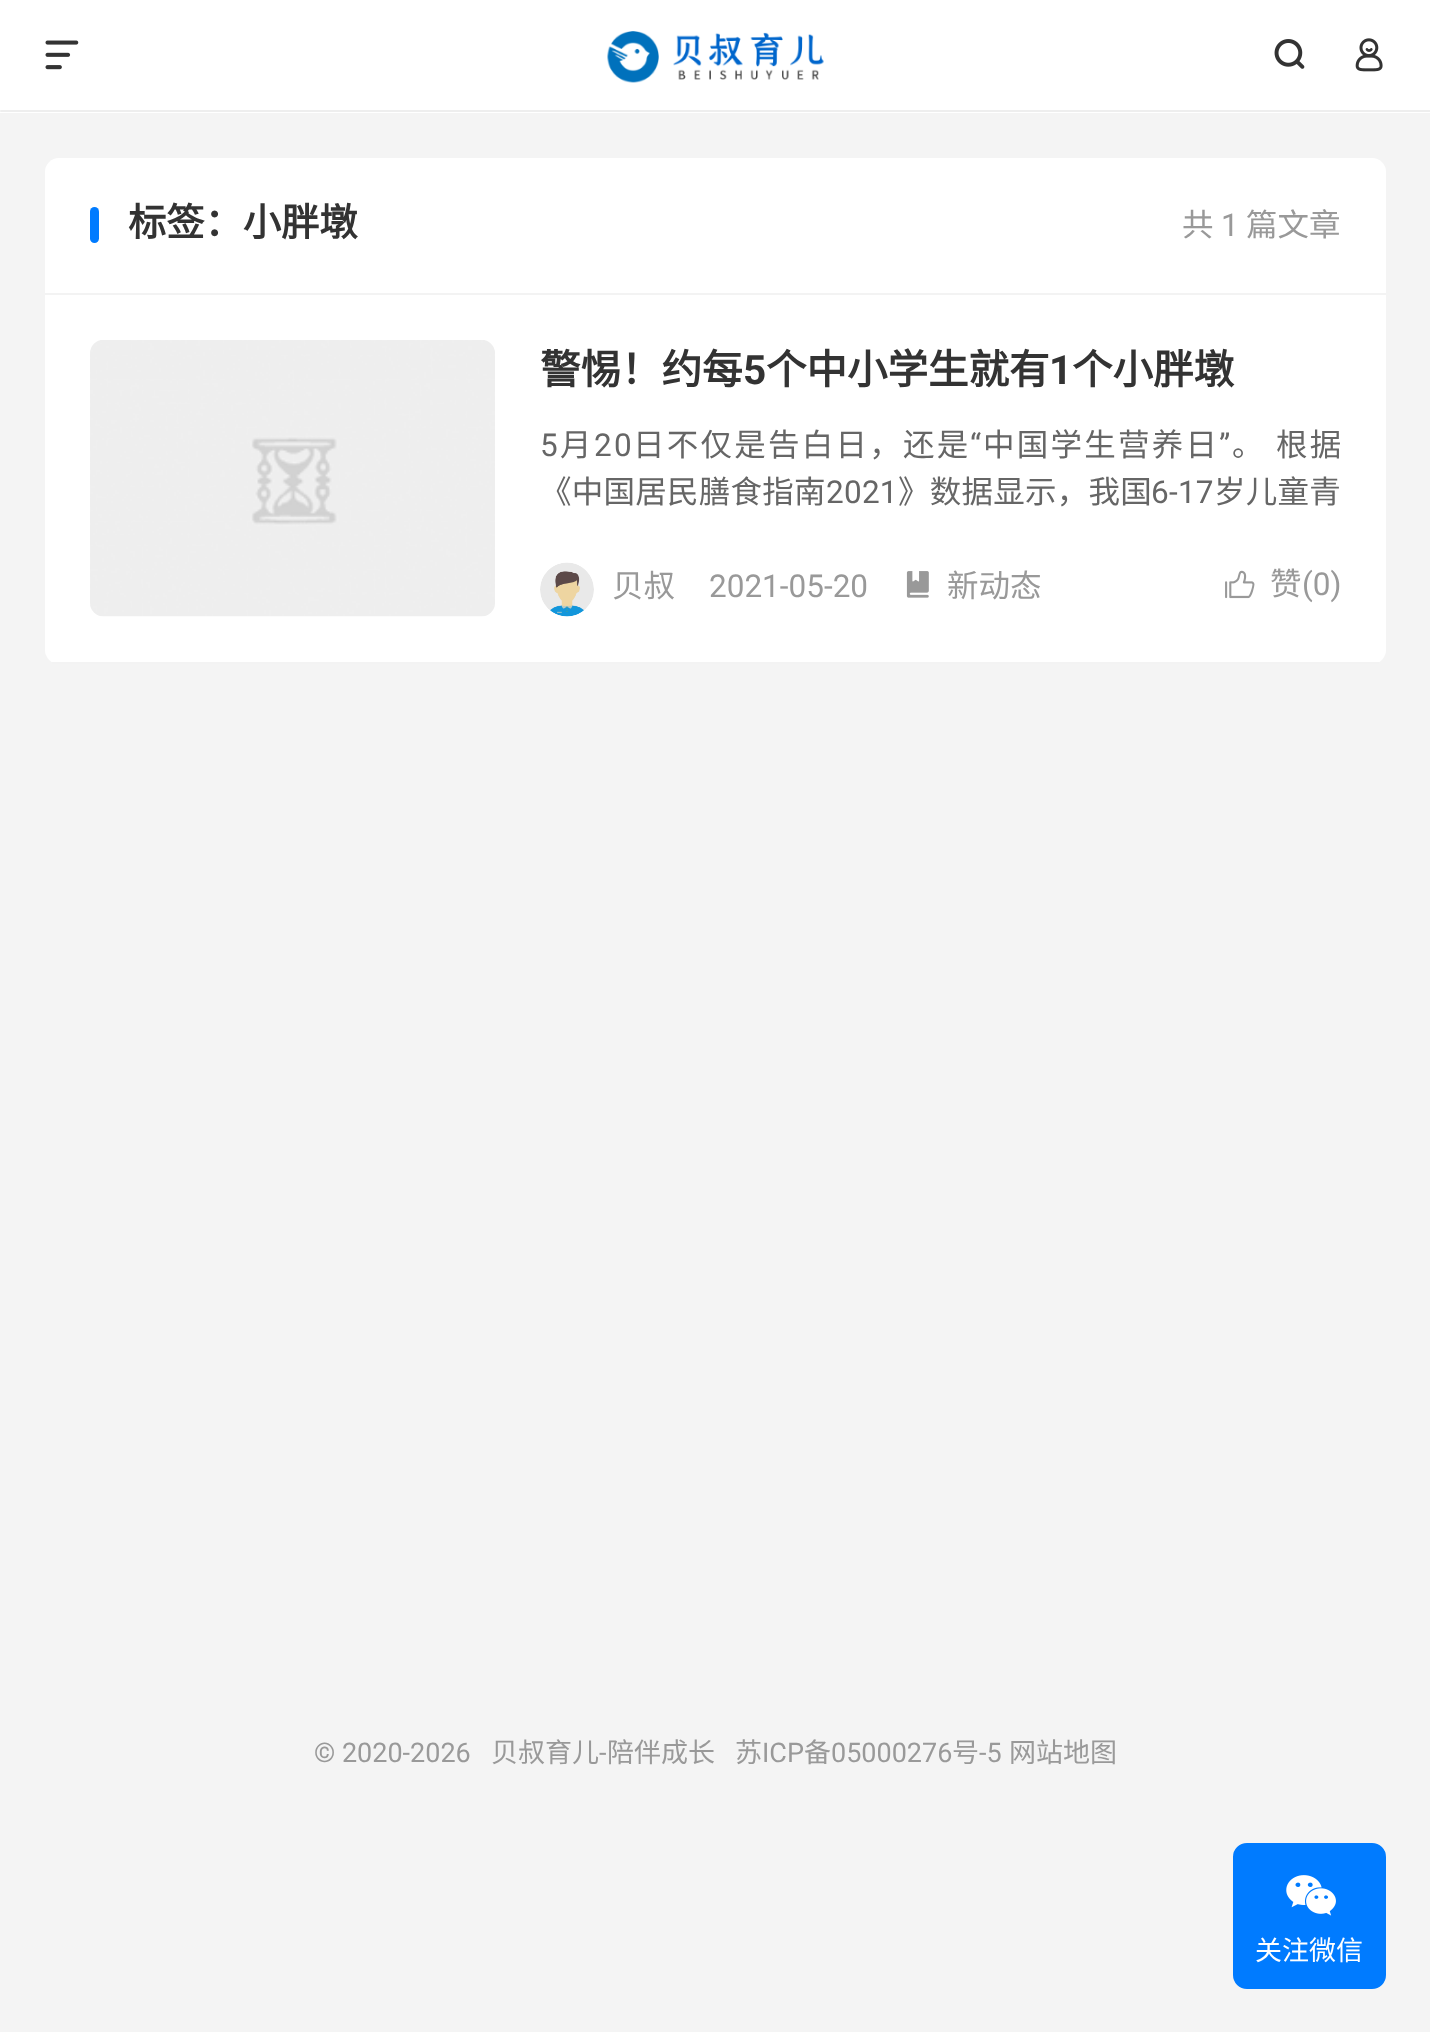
async function draw(canvas) {
	canvas.width = 1430;
	canvas.height = 2032;
	const c = canvas.getContext('2d');
	c.miterLimit = 4;
	c.fontKerning = 'normal';
	async function loadImage(src) {
		const img = new Image();
		img.src = src;
		await img.decode();
		return img;
	}

	c.fillStyle = '#f4f4f4';
	c.fillRect(0, 0, 1430, 2032);
	c.fillStyle = '#fff';
	c.fillRect(0, 0, 1430, 113);
	c.drawImage(await loadImage('img1.png'), 607, 31, 217, 52);
	c.drawImage(await loadImage('img2.png'), 1274, 39, 31, 30);
	c.drawImage(await loadImage('img3.png'), 1355, 38, 28, 34);
	c.fillStyle = '#eee';
	c.beginPath();
	c.roundRect(0, 110, 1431, 2, 1);
	c.fill();
	c.drawImage(await loadImage('img4.png'), 45, 40, 34, 30);
	c.fillStyle = '#fff';
	c.beginPath();
	c.roundRect(45, 158, 1341, 137, [14, 14, 0, 0]);
	c.fill();
	c.fillStyle = '#f3f3f3';
	c.fillRect(45, 293, 1341, 2);
	c.fillStyle = '#007bff';
	c.beginPath();
	c.roundRect(90, 207, 9, 36, 4.5);
	c.fill();
	c.font = 'bold 38.25px Noto Sans CJK SC';
	c.fillStyle = '#333';
	c.fillText('标签：小胖墩', 128, 236);
	c.font = '31.5px Noto Sans CJK SC';
	c.fillStyle = '#999';
	c.fillText('共', 1182, 236);
	c.font = '31.5px Roboto';
	c.fillText('1', 1221, 236);
	c.font = '31.5px Noto Sans CJK SC';
	c.fillText('篇文章', 1246, 236);
	c.fillStyle = '#fff';
	c.beginPath();
	c.roundRect(45, 295, 1341, 369, [0, 0, 14, 14]);
	c.fill();
	c.fillStyle = '#f3f3f3';
	c.fillRect(52, 662, 1327, 2);
	c.drawImage(await loadImage('img5.png'), 90, 340, 405, 277);
	c.font = 'bold 40.5px Noto Sans CJK SC';
	c.fillStyle = '#333';
	c.fillText('警惕！约每', 540, 384);
	c.font = 'bold 40.5px Roboto';
	c.fillText('5', 743, 384);
	c.font = 'bold 40.5px Noto Sans CJK SC';
	c.fillText('个中小学生就有', 766, 384);
	c.font = 'bold 40.5px Roboto';
	c.fillText('1', 1049, 384);
	c.font = 'bold 40.5px Noto Sans CJK SC';
	c.fillText('个小胖墩', 1072, 384);
	c.letterSpacing = '2.25px';
	c.font = '31.5px Roboto';
	c.fillStyle = '#666';
	c.fillText('5', 540, 456);
	c.font = '31.5px Noto Sans CJK SC';
	c.fillText('月', 560, 456);
	c.font = '31.5px Roboto';
	c.fillText('20', 594, 456);
	c.font = '31.5px Noto Sans CJK SC';
	c.fillText('日不仅是告白日，还是', 633, 456);
	c.font = '31.5px Roboto';
	c.fillText('“', 970, 456);
	c.font = '31.5px Noto Sans CJK SC';
	c.fillText('中国学生营养日', 983, 456);
	c.font = '31.5px Roboto';
	c.fillText('”', 1219, 456);
	c.wordSpacing = '1px';
	c.font = '31.5px Noto Sans CJK SC';
	c.fillText('。 根据', 1232, 456);
	c.letterSpacing = '0.25px';
	c.wordSpacing = '0px';
	c.fillText('《中国居民膳食指南', 540, 503);
	c.font = '31.5px Roboto';
	c.fillText('2021', 826, 503);
	c.font = '31.5px Noto Sans CJK SC';
	c.fillText('》数据显示，我国', 898, 503);
	c.font = '31.5px Roboto';
	c.fillText('6-17', 1151, 503);
	c.font = '31.5px Noto Sans CJK SC';
	c.fillText('岁儿童青', 1214, 503);
	c.drawImage(await loadImage('img6.png'), 540, 562, 54, 55);
	c.letterSpacing = '0px';
	c.fillStyle = '#999';
	c.fillText('贝叔', 612, 597);
	c.font = '31.5px Roboto';
	c.fillText('2021-05-20', 709, 597);
	c.drawImage(await loadImage('img7.png'), 906, 571, 23, 27);
	c.font = '31.5px Noto Sans CJK SC';
	c.fillText('新动态', 947, 597);
	c.drawImage(await loadImage('img8.png'), 1225, 570, 30, 29);
	c.fillText('赞', 1270, 595);
	c.font = '31.5px Roboto';
	c.fillText('(0)', 1302, 595);
	c.font = '27px Roboto';
	c.fillText('© 2020-2026', 314, 1762);
	c.font = '27px Noto Sans CJK SC';
	c.fillText('贝叔育儿', 491, 1762);
	c.font = '27px Roboto';
	c.fillText('-', 599, 1762);
	c.font = '27px Noto Sans CJK SC';
	c.fillText('陪伴成长', 607, 1762);
	c.fillText('苏', 735, 1762);
	c.font = '27px Roboto';
	c.fillText('ICP', 762, 1762);
	c.font = '27px Noto Sans CJK SC';
	c.fillText('备', 804, 1762);
	c.font = '27px Roboto';
	c.fillText('05000276', 831, 1762);
	c.font = '27px Noto Sans CJK SC';
	c.fillText('号', 952, 1762);
	c.font = '27px Roboto';
	c.fillText('-5', 979, 1762);
	c.font = '27px Noto Sans CJK SC';
	c.fillText('网站地图', 1009, 1762);
	c.fillStyle = '#007bff';
	c.beginPath();
	c.roundRect(1234, 1844, 151, 144, 13);
	c.fill();
	c.strokeStyle = '#007bff';
	c.lineWidth = 2;
	c.stroke();
	c.drawImage(await loadImage('img9.png'), 1286, 1875, 50, 41);
	c.fillStyle = '#fff';
	c.fillText('关注微信', 1255, 1960);
}

draw(document.querySelector('canvas'));
